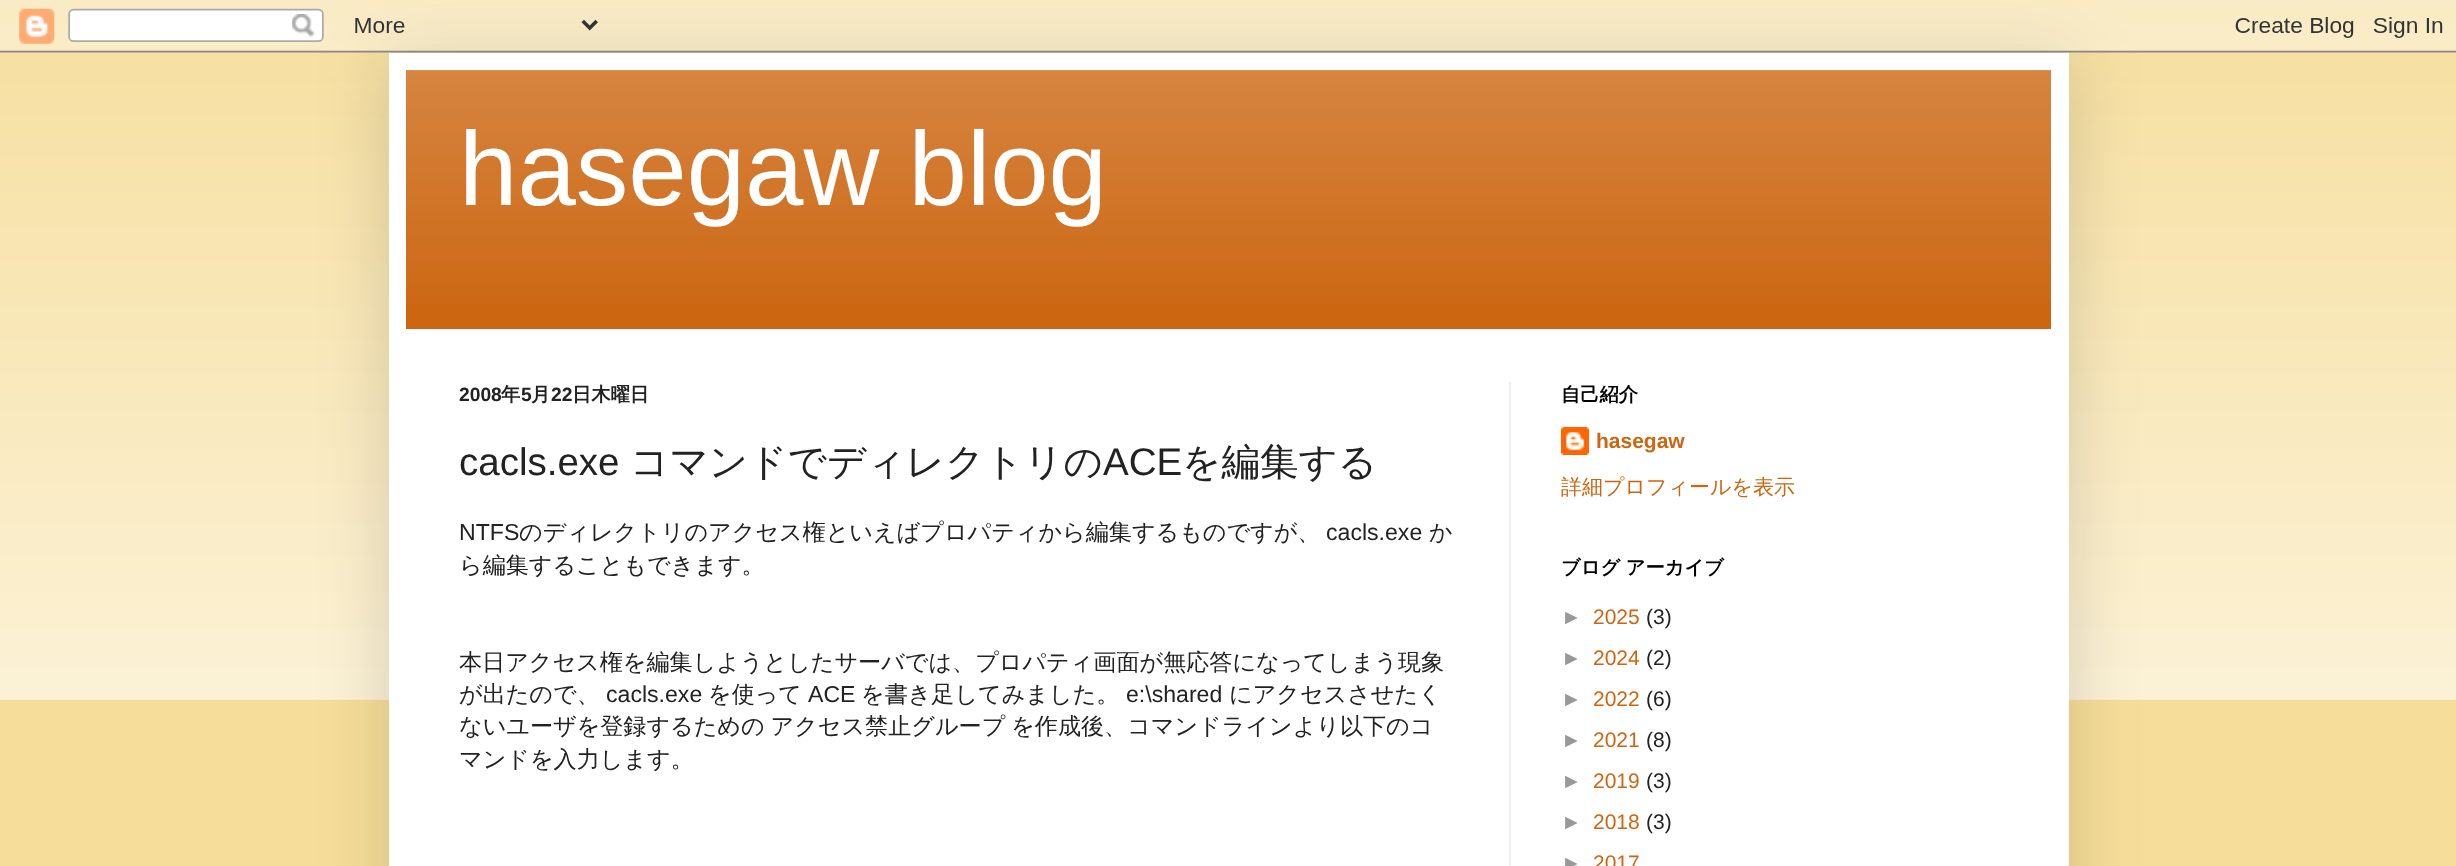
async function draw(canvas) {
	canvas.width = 2456;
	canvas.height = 866;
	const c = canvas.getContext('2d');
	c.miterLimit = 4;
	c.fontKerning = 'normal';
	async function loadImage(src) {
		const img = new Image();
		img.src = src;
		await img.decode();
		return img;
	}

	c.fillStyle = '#f6dd99';
	c.fillRect(0, 0, 2456, 866);
	c.drawImage(await loadImage('img1.png'), 0, 0, 2456, 700);
	c.fillStyle = '#00000026';
	c.filter = 'blur(35px)';
	c.beginPath();
	c.rect(389, 53, 1680, 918);
	c.fill();
	c.filter = 'none';
	c.drawImage(await loadImage('img2.png'), 0, 0, 2456, 53);
	c.fillStyle = '#fff';
	c.fillRect(389, 53, 1680, 813);
	c.fillStyle = '#c61';
	c.fillRect(406, 70, 1645, 259);
	c.drawImage(await loadImage('img3.png'), 406, 70, 1645, 233);
	c.font = '105px Liberation Sans';
	c.fillStyle = '#fff';
	c.fillText('hasegaw blog', 459, 205);
	c.fillStyle = '#eee';
	c.fillRect(1509, 382, 2, 484);
	c.font = 'bold 19.25px Liberation Sans';
	c.fillStyle = '#222';
	c.fillText('2008', 459, 401);
	c.font = 'bold 19.25px WenQuanYi Zen Hei';
	c.fillText('年', 501, 401);
	c.font = 'bold 19.25px Liberation Sans';
	c.fillText('5', 521, 401);
	c.font = 'bold 19.25px WenQuanYi Zen Hei';
	c.fillText('月', 531, 401);
	c.font = 'bold 19.25px Liberation Sans';
	c.fillText('22', 551, 401);
	c.font = 'bold 19.25px WenQuanYi Zen Hei';
	c.fillText('日木曜日', 572, 401);
	c.font = '38.5px Liberation Sans';
	c.fillText('cacls.exe', 459, 475);
	c.font = '500 38.5px WenQuanYi Zen Hei';
	c.fillText('コマンドでディレクトリの', 630, 475);
	c.font = '38.5px Liberation Sans';
	c.fillText('ACE', 1103, 475);
	c.font = '500 38.5px WenQuanYi Zen Hei';
	c.fillText('を編集する', 1182, 475);
	c.font = '23.1px Liberation Sans';
	c.fillText('NTFS', 459, 540);
	c.font = '500 23.1px WenQuanYi Zen Hei';
	c.fillText('のディレクトリのアクセス権といえばプロパティから編集するものですが、', 519, 540);
	c.font = '23.1px Liberation Sans';
	c.fillText('cacls.exe', 1326, 540);
	c.font = '500 23.1px WenQuanYi Zen Hei';
	for (const [text, x, y] of [
		['か', 1429, 540],
		['ら編集することもできます。', 459, 573],
		['本日アクセス権を編集しようとしたサーバでは、プロパティ画面が無応答になってしまう現象', 459, 670],
		['が出たので、', 459, 702],
	]) {
		c.fillText(text, x, y);
	}
	c.font = '23.1px Liberation Sans';
	c.fillText('cacls.exe', 606, 702);
	c.font = '500 23.1px WenQuanYi Zen Hei';
	c.fillText('を使って', 708, 702);
	c.font = '23.1px Liberation Sans';
	c.fillText('ACE', 808, 702);
	c.font = '500 23.1px WenQuanYi Zen Hei';
	c.fillText('を書き足してみました。', 861, 702);
	c.font = '23.1px Liberation Sans';
	c.fillText('e:\\shared', 1126, 702);
	c.font = '500 23.1px WenQuanYi Zen Hei';
	c.fillText('にアクセスさせたく', 1229, 702);
	c.wordSpacing = '-1px';
	c.fillText('ないユーザを登録するための アクセス禁止グループ を作成後、コマンドラインより以下のコ', 459, 734);
	c.wordSpacing = '0px';
	c.fillText('マンドを入力します。', 459, 767);
	c.font = 'bold 19.25px WenQuanYi Zen Hei';
	c.fillStyle = '#000';
	c.fillText('自己紹介', 1561, 401);
	c.drawImage(await loadImage('img4.png'), 1561, 427, 28, 28);
	c.font = 'bold 21px Liberation Sans';
	c.fillStyle = '#c61';
	c.fillText('hasegaw', 1596, 448);
	c.font = '500 21px WenQuanYi Zen Hei';
	c.fillText('詳細プロフィールを表示', 1561, 494);
	c.font = 'bold 19.25px WenQuanYi Zen Hei';
	c.fillStyle = '#000';
	c.fillText('ブログ アーカイブ', 1561, 574);
	c.font = '21px Liberation Sans';
	c.fillStyle = '#999';
	c.fillText('►', 1561, 624);
	c.fillStyle = '#c61';
	c.fillText('2025', 1593, 624);
	c.fillStyle = '#222';
	c.fillText('(3)', 1646, 624);
	c.fillStyle = '#999';
	c.fillText('►', 1561, 665);
	c.fillStyle = '#c61';
	c.fillText('2024', 1593, 665);
	c.fillStyle = '#222';
	c.fillText('(2)', 1646, 665);
	c.fillStyle = '#999';
	c.fillText('►', 1561, 706);
	c.fillStyle = '#c61';
	c.fillText('2022', 1593, 706);
	c.fillStyle = '#222';
	c.fillText('(6)', 1646, 706);
	c.fillStyle = '#999';
	c.fillText('►', 1561, 747);
	c.fillStyle = '#c61';
	c.fillText('2021', 1593, 747);
	c.fillStyle = '#222';
	c.fillText('(8)', 1646, 747);
	c.fillStyle = '#999';
	c.fillText('►', 1561, 788);
	c.fillStyle = '#c61';
	c.fillText('2019', 1593, 788);
	c.fillStyle = '#222';
	c.fillText('(3)', 1646, 788);
	c.fillStyle = '#999';
	c.fillText('►', 1561, 829);
	c.fillStyle = '#c61';
	c.fillText('2018', 1593, 829);
	c.fillStyle = '#222';
	c.fillText('(3)', 1646, 829);
	c.fillStyle = '#999';
	c.fillText('►', 1561, 870);
	c.fillStyle = '#c61';
	c.fillText('2017', 1593, 870);
}

draw(document.querySelector('canvas'));
